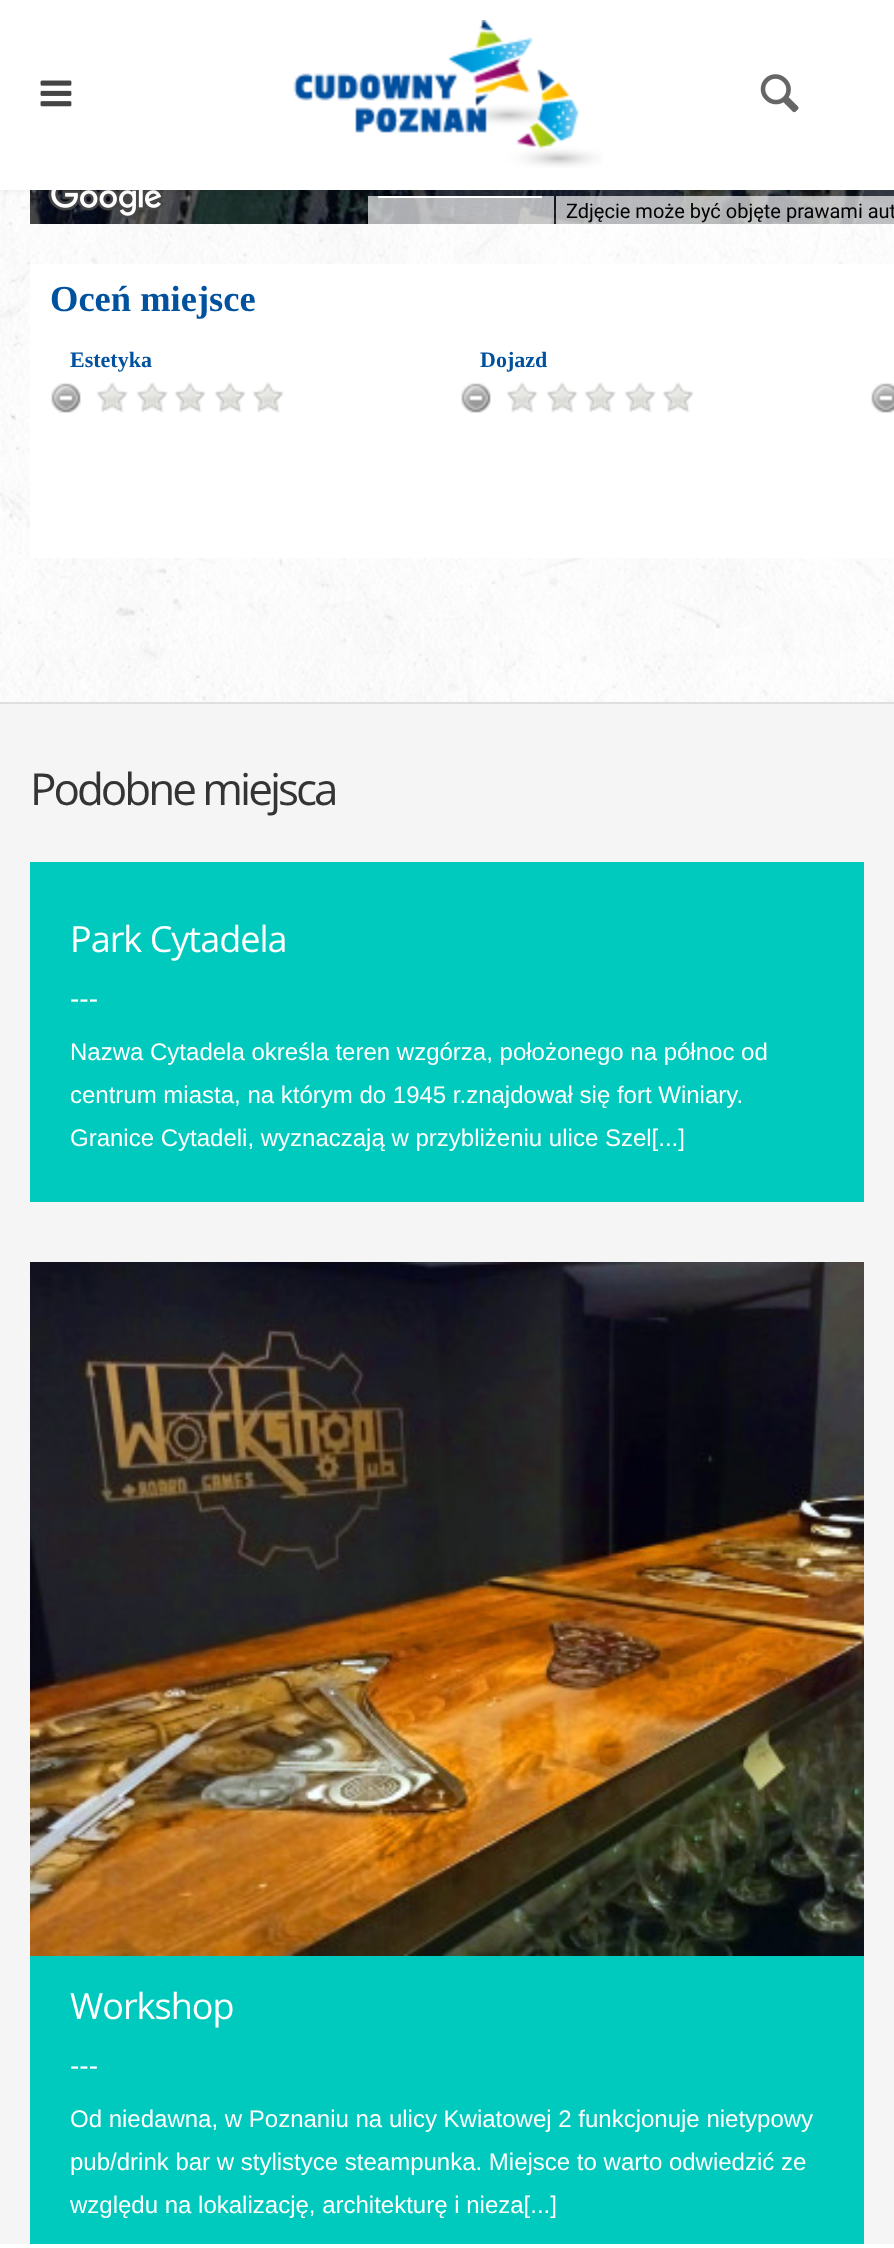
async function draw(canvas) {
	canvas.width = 894;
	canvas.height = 2248;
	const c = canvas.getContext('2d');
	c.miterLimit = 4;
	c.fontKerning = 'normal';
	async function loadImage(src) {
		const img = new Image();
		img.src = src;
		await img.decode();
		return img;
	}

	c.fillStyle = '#fff';
	c.fillRect(0, 0, 894, 2248);
	c.drawImage(await loadImage('img4.png'), 0, 190, 894, 512);
	c.drawImage(await loadImage('img5.png'), 30, 190, 434, 34);
	c.drawImage(await loadImage('img6.png'), 464, 190, 430, 34);
	c.drawImage(await loadImage('img7.png'), 48, 190, 117, 29);
	for (const [x, y, w, h, color] of [
		[368, 196, 186, 28, '#f5f5f5b3'],
		[378, 196, 164, 2, '#fff'],
		[556, 196, 338, 28, '#f5f5f5b3'],
	]) {
		c.fillStyle = color;
		c.fillRect(x, y, w, h);
	}
	c.fillStyle = '#0000000d';
	c.filter = 'blur(2px)';
	c.beginPath();
	c.rect(0, 2, 894, 190);
	c.fill();
	c.filter = 'none';
	c.fillStyle = '#fff';
	c.fillRect(0, 0, 894, 190);
	c.drawImage(await loadImage('img1.png'), 40, 80, 32, 27);
	c.drawImage(await loadImage('img2.png'), 293, 20, 310, 148);
	c.drawImage(await loadImage('img3.png'), 760, 74, 39, 39);
	c.font = '20px Roboto';
	c.fillStyle = '#000';
	c.fillText('Zdjęcie może być objęte prawami aut', 566, 218);
	c.fillStyle = '#fff';
	c.fillRect(30, 264, 864, 294);
	c.font = 'bold 36.5px Liberation Serif';
	c.fillStyle = '#00519e';
	c.fillText('Oceń miejsce', 50, 311);
	c.font = 'bold 22px Liberation Serif';
	c.fillText('Estetyka', 70, 367);
	c.drawImage(await loadImage('img8.png'), 51, 383, 30, 30);
	c.drawImage(await loadImage('img9.png'), 96, 382, 32, 31);
	c.drawImage(await loadImage('img9.png'), 136, 382, 32, 31);
	c.drawImage(await loadImage('img9.png'), 174, 382, 32, 31);
	c.drawImage(await loadImage('img9.png'), 214, 382, 32, 31);
	c.drawImage(await loadImage('img9.png'), 252, 382, 32, 31);
	c.fillText('Dojazd', 480, 367);
	c.drawImage(await loadImage('img8.png'), 461, 383, 30, 30);
	c.drawImage(await loadImage('img9.png'), 506, 382, 32, 31);
	c.drawImage(await loadImage('img9.png'), 546, 382, 32, 31);
	c.drawImage(await loadImage('img9.png'), 584, 382, 32, 31);
	c.drawImage(await loadImage('img9.png'), 624, 382, 32, 31);
	c.drawImage(await loadImage('img9.png'), 662, 382, 32, 31);
	c.drawImage(await loadImage('img10.png'), 871, 383, 23, 30);
	c.fillStyle = '#f5f5f5';
	c.fillRect(0, 704, 894, 1540);
	c.fillStyle = '#dfdfdf';
	c.fillRect(0, 702, 894, 2);
	c.letterSpacing = '-3px';
	c.font = '44px Open Sans';
	c.fillStyle = '#343434';
	c.fillText('Podobne miejsca', 30, 805);
	c.fillStyle = '#00cabe';
	c.fillRect(30, 862, 834, 340);
	c.letterSpacing = '-1px';
	c.font = '36px Open Sans';
	c.fillStyle = '#fff';
	c.fillText('Park Cytadela', 70, 952);
	c.letterSpacing = '0px';
	c.font = '28px Liberation Sans';
	c.fillText('---', 70, 1008);
	c.font = '24px Liberation Sans';
	for (const [text, x, y] of [
		['Nazwa Cytadela określa teren wzgórza, położonego na północ od', 70, 1060],
		['centrum miasta, na którym do 1945 r.znajdował się fort Winiary.', 70, 1103],
		['Granice Cytadeli, wyznaczają w przybliżeniu ulice Szel[...]', 70, 1146],
	]) {
		c.fillText(text, x, y);
	}
	c.fillStyle = '#00cabe';
	c.fillRect(30, 1956, 834, 288);
	c.drawImage(await loadImage('img11.png'), 30, 1262, 834, 694);
	c.letterSpacing = '-1px';
	c.font = '36px Open Sans';
	c.fillStyle = '#fff';
	c.fillText('Workshop', 70, 2019);
	c.letterSpacing = '0px';
	c.font = '28px Liberation Sans';
	c.fillText('---', 70, 2075);
	c.font = '24px Liberation Sans';
	for (const [text, x, y] of [
		['Od niedawna, w Poznaniu na ulicy Kwiatowej 2 funkcjonuje nietypowy', 70, 2127],
		['pub/drink bar w stylistyce steampunka. Miejsce to warto odwiedzić ze', 70, 2170],
		['względu na lokalizację, architekturę i nieza[...]', 70, 2213],
	]) {
		c.fillText(text, x, y);
	}
}

draw(document.querySelector('canvas'));
